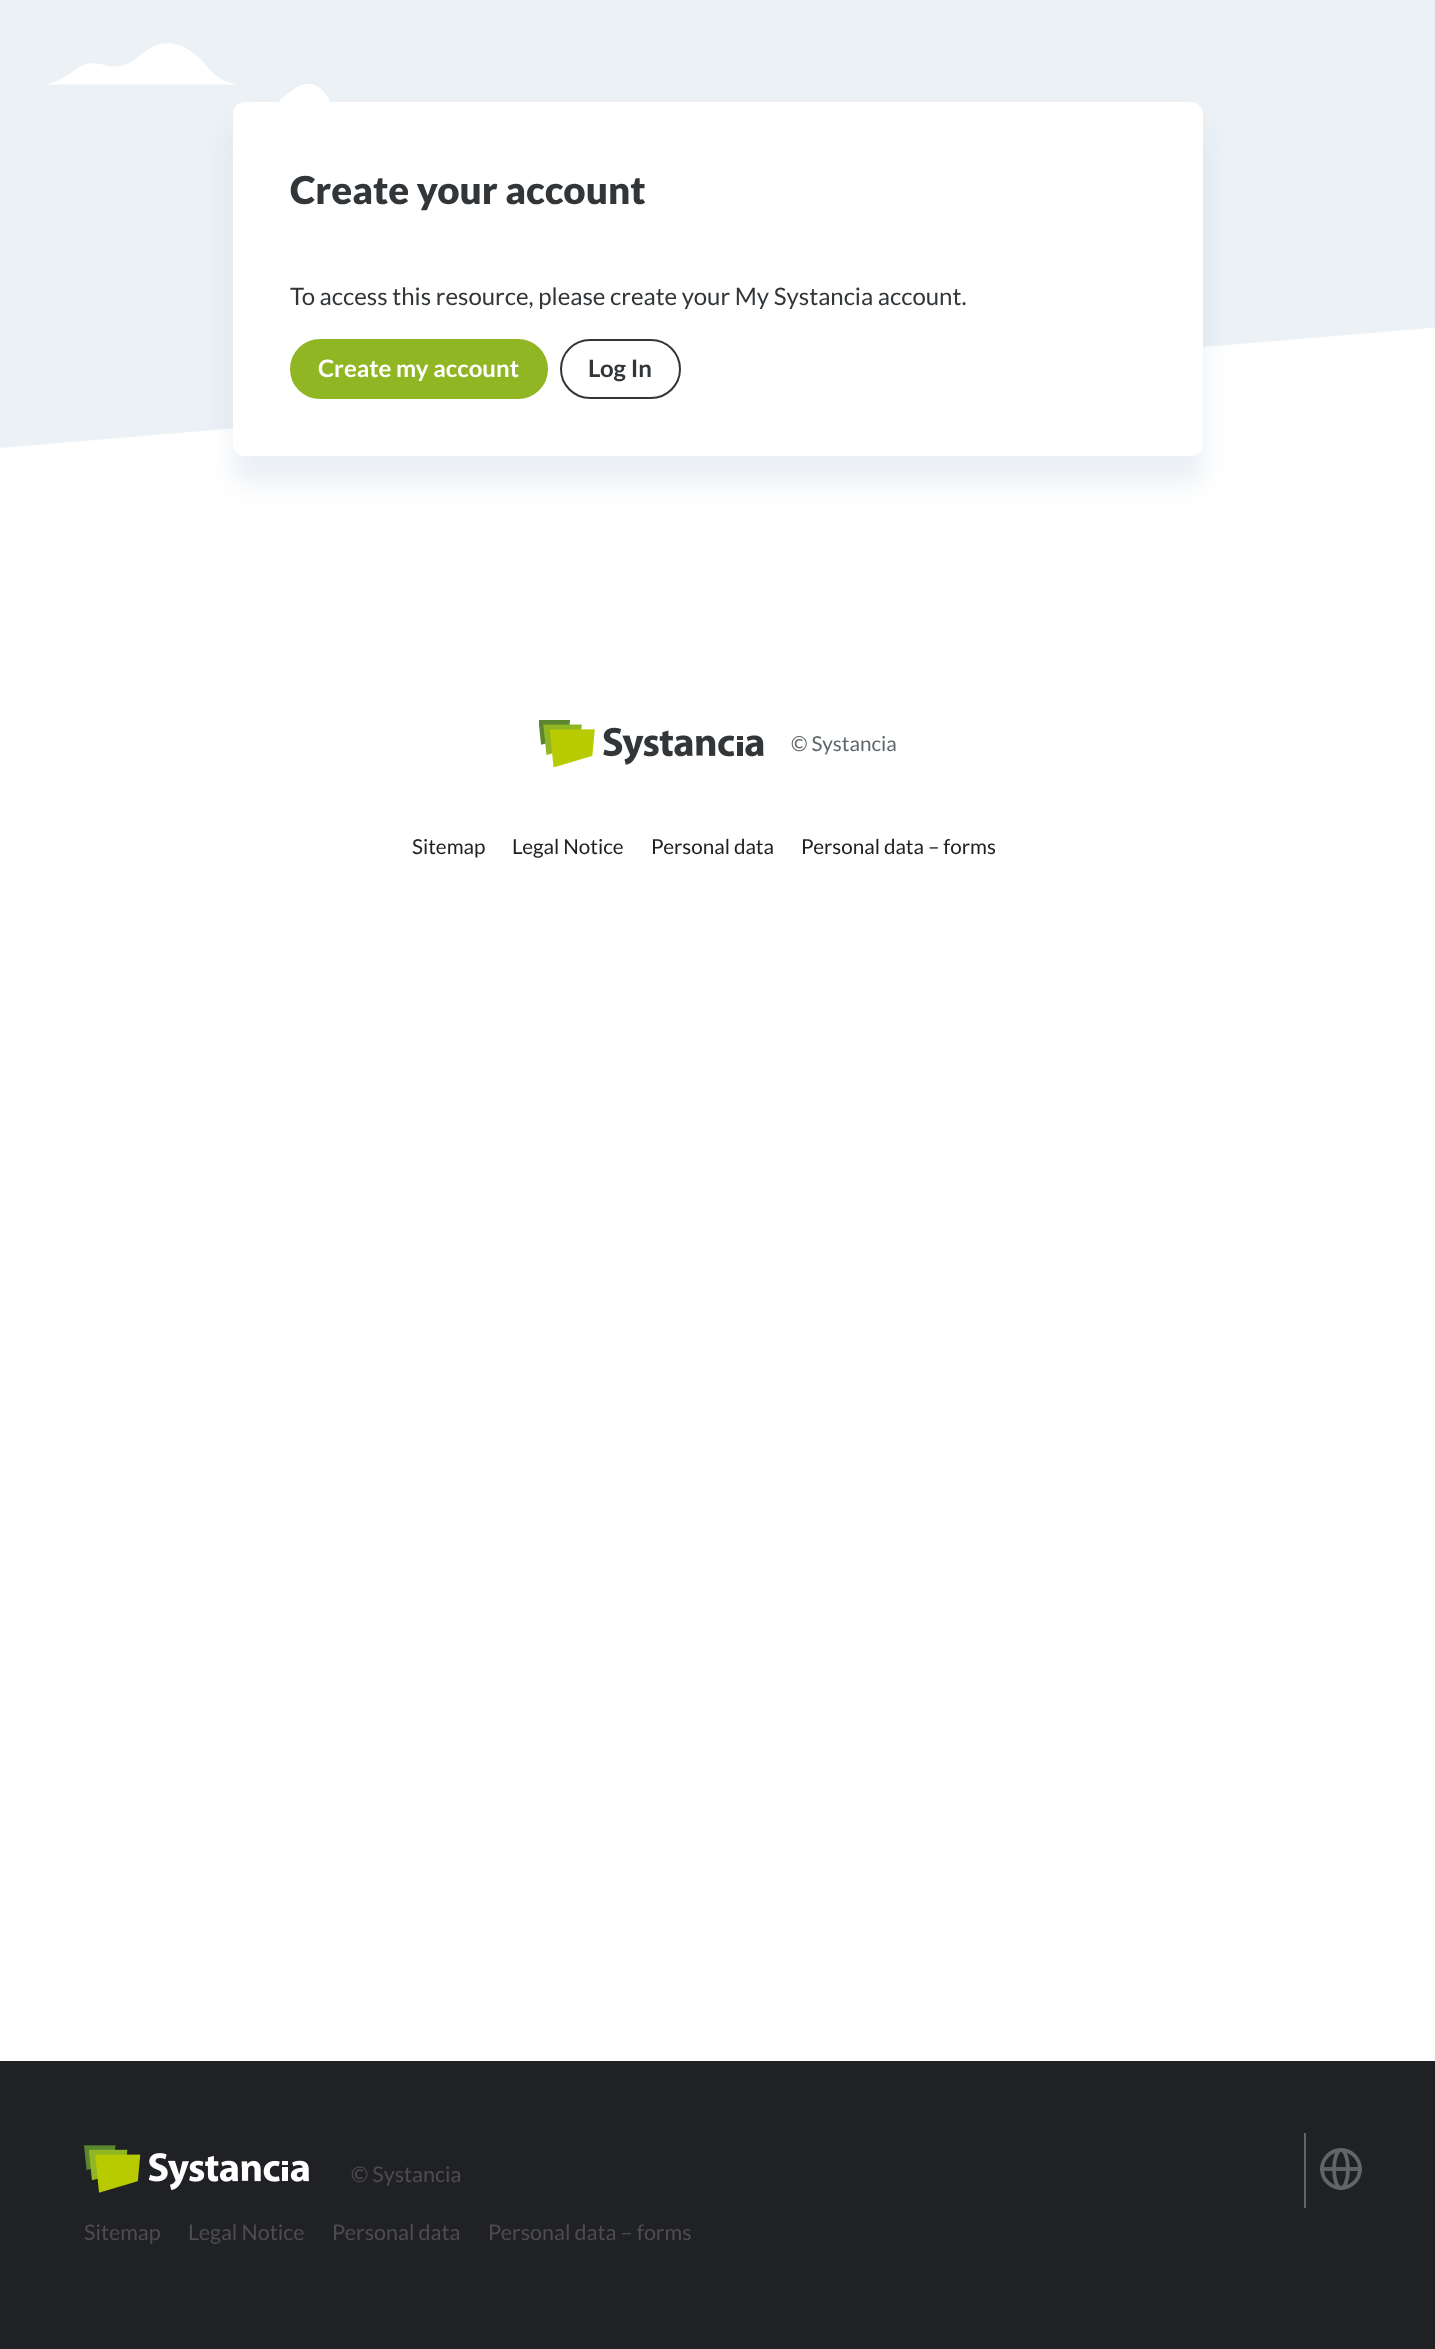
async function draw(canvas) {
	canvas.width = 1435;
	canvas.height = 2349;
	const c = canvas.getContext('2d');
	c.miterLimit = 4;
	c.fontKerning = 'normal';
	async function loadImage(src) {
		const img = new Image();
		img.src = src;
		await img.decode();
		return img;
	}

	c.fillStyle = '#fff';
	c.fillRect(0, 0, 1435, 2349);
	c.drawImage(await loadImage('img1.png'), 0, 0, 1435, 448);
	c.fillStyle = '#bacbd94d';
	c.filter = 'blur(13.5px)';
	c.beginPath();
	c.roundRect(233, 129, 970, 354, 12);
	c.fill();
	c.filter = 'none';
	c.fillStyle = '#fff';
	c.beginPath();
	c.roundRect(233, 102, 970, 354, 12);
	c.fill();
	c.font = '900 38.5px Lato';
	c.fillStyle = '#323639';
	c.fillText('Create your account', 290, 204);
	c.font = '24px Lato';
	c.fillText('To access this resource, please create your My Systancia account.', 290, 305);
	c.fillStyle = '#91b623';
	c.beginPath();
	c.roundRect(291, 340, 256, 58, 29);
	c.fill();
	c.strokeStyle = '#91b623';
	c.lineWidth = 2;
	c.stroke();
	c.font = 'bold 24px Lato';
	c.fillStyle = '#fff';
	c.fillText('Create my account', 318, 377);
	c.beginPath();
	c.roundRect(561, 340, 119, 58, 29);
	c.strokeStyle = '#323639';
	c.stroke();
	c.fillStyle = '#323639';
	c.fillText('Log In', 588, 377);
	c.drawImage(await loadImage('img2.png'), 539, 720, 225, 47);
	c.font = '20.6px Lato';
	c.fillStyle = '#5e666b';
	c.fillText('© Systancia', 791, 751);
	c.fillStyle = '#202124';
	for (const [text, x, y] of [
		['Sitemap', 412, 854],
		['Legal Notice', 512, 854],
		['Personal data', 651, 854],
		['Personal data – forms', 801, 854],
	]) {
		c.fillText(text, x, y);
	}
	c.fillRect(0, 2061, 1435, 288);
	c.drawImage(await loadImage('img3.png'), 84, 2145, 225, 48);
	c.font = '21.5px Lato';
	c.fillStyle = '#4d4d50';
	c.fillText('© Systancia', 351, 2182);
	c.fillStyle = '#636466';
	c.fillRect(1304, 2133, 2, 75);
	c.beginPath();
	c.arc(1341, 2169, 19, 0, 2 * Math.PI);
	c.strokeStyle = '#636466';
	c.lineWidth = 3.8;
	c.stroke();
	c.beginPath();
	c.ellipse(1341, 2169, 7, 19, 0, 0, 2 * Math.PI);
	c.stroke();
	c.fillStyle = '#636466f2';
	c.fillRect(1320, 2167, 42, 4);
	c.fillStyle = '#4d4d50';
	for (const [text, x, y] of [
		['Sitemap', 84, 2240],
		['Legal Notice', 188, 2240],
		['Personal data', 332, 2240],
		['Personal data – forms', 488, 2240],
	]) {
		c.fillText(text, x, y);
	}
}

draw(document.querySelector('canvas'));
